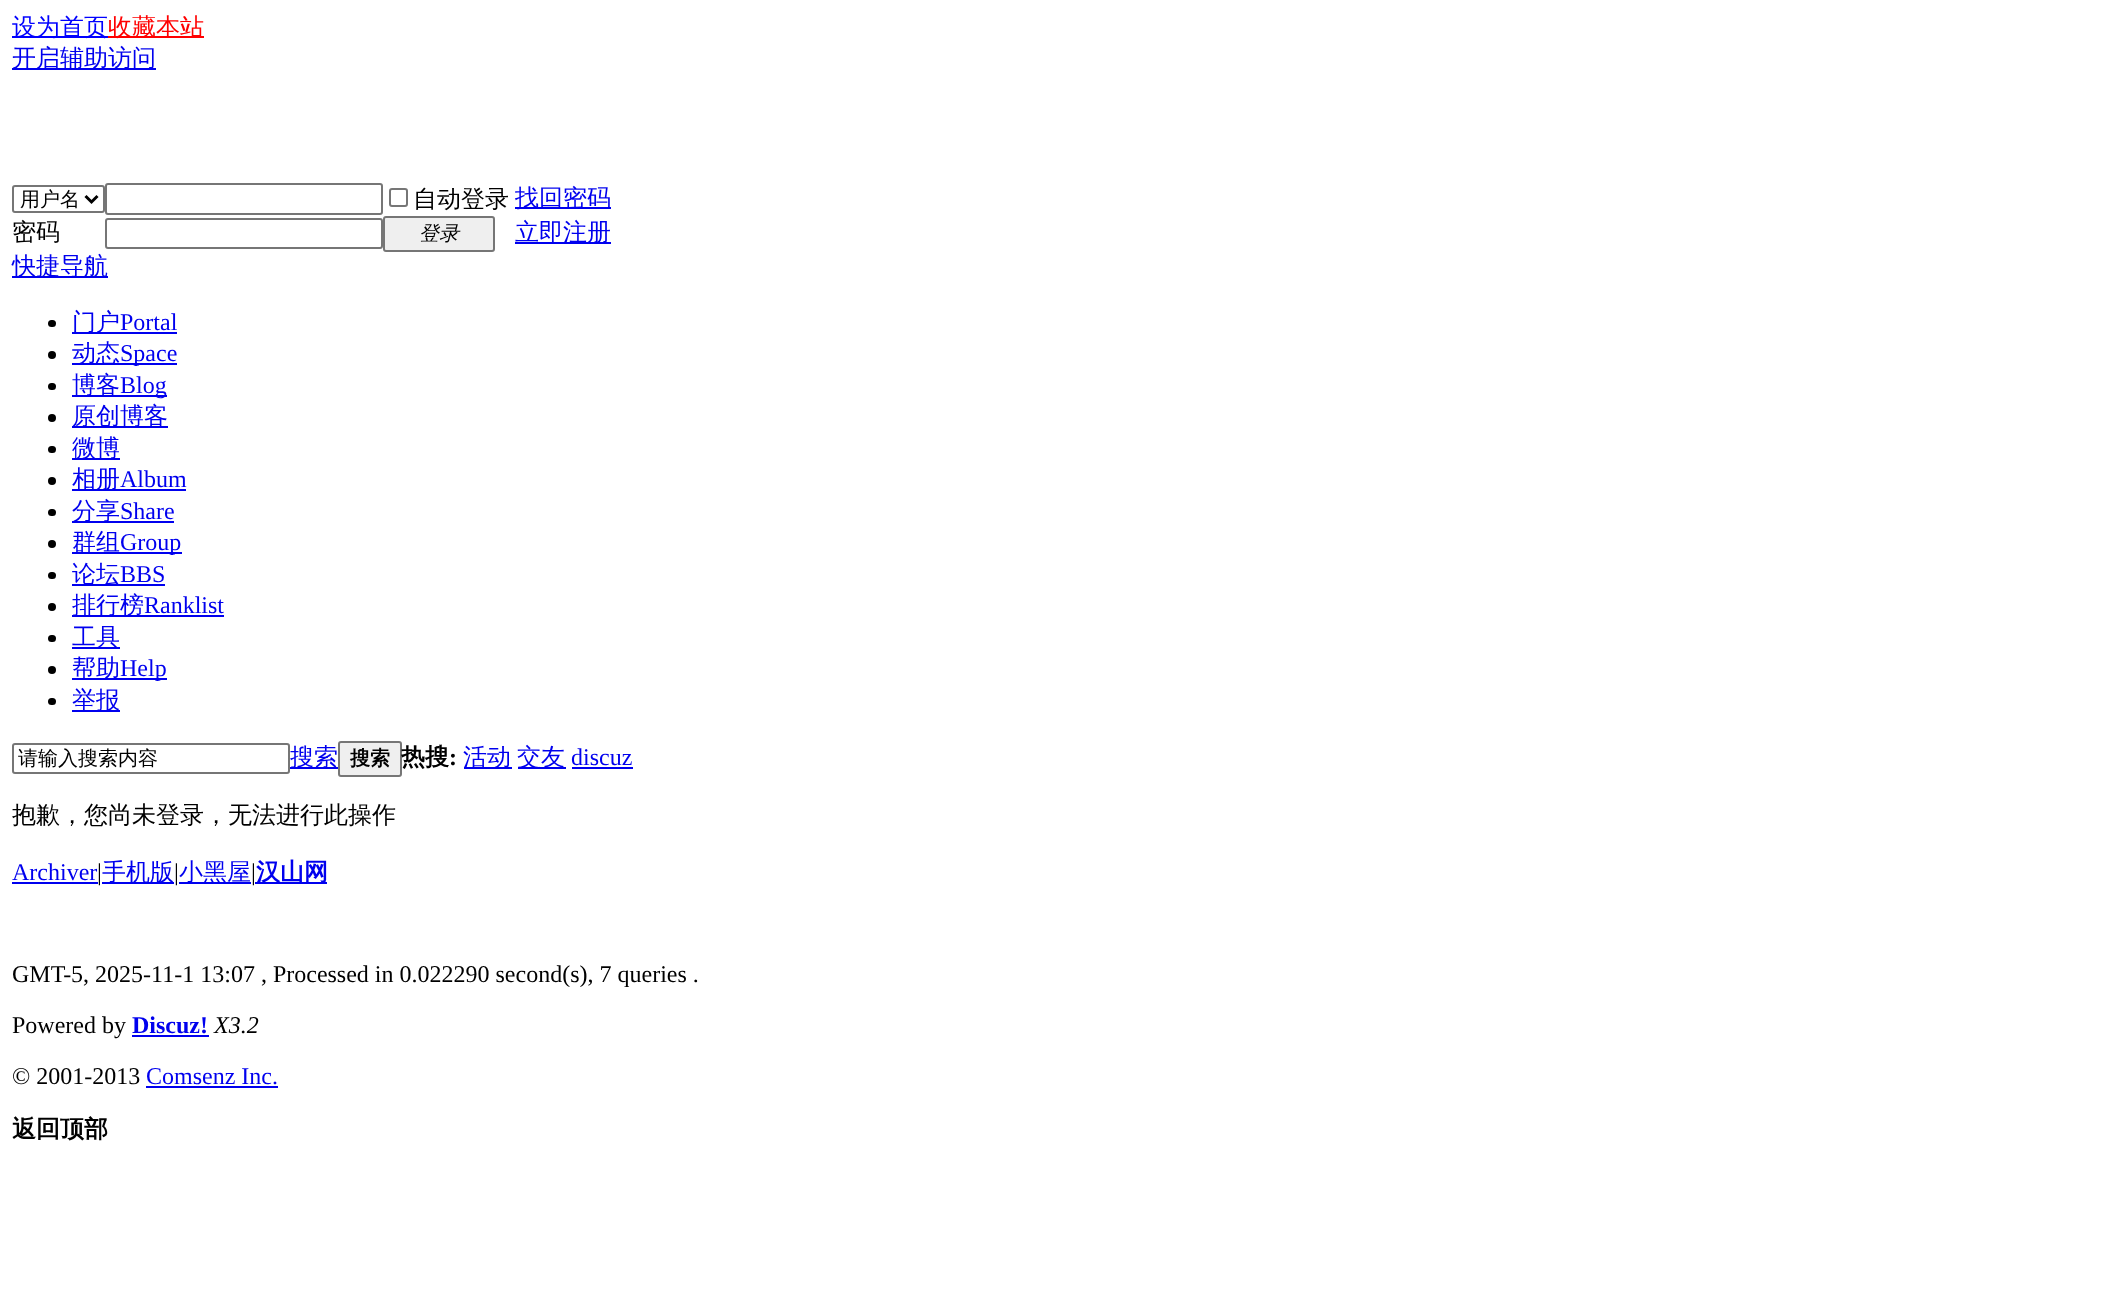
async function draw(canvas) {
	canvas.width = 2109;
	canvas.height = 1305;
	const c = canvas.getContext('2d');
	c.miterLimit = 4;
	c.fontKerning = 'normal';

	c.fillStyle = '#fff';
	c.fillRect(0, 0, 2109, 1305);
	c.fillStyle = '#00f';
	c.fillRect(12, 36, 96, 2);
	c.font = '500 24px WenQuanYi Zen Hei';
	c.fillText('设为首页', 12, 35);
	c.fillStyle = '#f00';
	c.fillRect(108, 36, 96, 2);
	c.fillText('收藏本站', 108, 35);
	c.fillStyle = '#00e';
	c.fillRect(12, 68, 144, 2);
	c.fillText('开启辅助访问', 12, 66);
	c.beginPath();
	c.roundRect(13, 186, 91, 26, 2);
	c.strokeStyle = '#767676';
	c.lineWidth = 2;
	c.stroke();
	c.beginPath();
	c.moveTo(85.5, 196);
	c.lineTo(91.5, 202);
	c.lineTo(97.5, 196);
	c.strokeStyle = '#000';
	c.lineWidth = 3;
	c.stroke();
	c.font = '500 20px WenQuanYi Zen Hei';
	c.fillStyle = '#000';
	c.fillText('用户名', 20, 206);
	c.beginPath();
	c.roundRect(106, 184, 276, 30, 2);
	c.strokeStyle = '#767676';
	c.lineWidth = 2;
	c.stroke();
	c.beginPath();
	c.roundRect(390, 189, 17, 17, 2);
	c.stroke();
	c.font = '500 24px WenQuanYi Zen Hei';
	c.fillText('自动登录', 413, 207);
	c.fillStyle = '#00e';
	c.fillRect(515, 207, 96, 2);
	c.fillText('找回密码', 515, 206);
	c.fillStyle = '#000';
	c.fillText('密码', 12, 240);
	c.beginPath();
	c.roundRect(106, 219, 276, 29, 2);
	c.stroke();
	c.fillStyle = '#efefef';
	c.beginPath();
	c.roundRect(384, 217, 110, 34, 2);
	c.fill();
	c.stroke();
	c.font = 'italic 500 20px WenQuanYi Zen Hei';
	c.fillStyle = '#000';
	c.fillText('登录', 419, 240);
	c.fillStyle = '#00e';
	c.fillRect(515, 242, 96, 2);
	c.font = '500 24px WenQuanYi Zen Hei';
	c.fillText('立即注册', 515, 240);
	c.fillRect(12, 276, 96, 2);
	c.fillText('快捷导航', 12, 274);
	c.fillStyle = '#000';
	c.beginPath();
	c.roundRect(48, 320, 8, 7, 3.5);
	c.fill();
	c.fillStyle = '#00e';
	c.fillRect(72, 332, 105, 2);
	c.fillText('门户', 72, 330);
	c.font = '24px Liberation Serif';
	c.fillText('Portal', 120, 330);
	c.fillStyle = '#000';
	c.beginPath();
	c.arc(52, 355, 4, 0, 2 * Math.PI);
	c.fill();
	c.fillStyle = '#00e';
	c.fillRect(72, 363, 105, 2);
	c.font = '500 24px WenQuanYi Zen Hei';
	c.fillText('动态', 72, 361);
	c.font = '24px Liberation Serif';
	c.fillText('Space', 120, 361);
	c.fillStyle = '#000';
	c.beginPath();
	c.roundRect(48, 383, 8, 7, 3.5);
	c.fill();
	c.fillStyle = '#00e';
	c.fillRect(72, 395, 95, 2);
	c.font = '500 24px WenQuanYi Zen Hei';
	c.fillText('博客', 72, 393);
	c.font = '24px Liberation Serif';
	c.fillText('Blog', 120, 393);
	c.fillStyle = '#000';
	c.beginPath();
	c.arc(52, 418, 4, 0, 2 * Math.PI);
	c.fill();
	c.fillStyle = '#00e';
	c.fillRect(72, 426, 96, 2);
	c.font = '500 24px WenQuanYi Zen Hei';
	c.fillText('原创博客', 72, 424);
	c.fillStyle = '#000';
	c.beginPath();
	c.roundRect(48, 446, 8, 7, 3.5);
	c.fill();
	c.fillStyle = '#00e';
	c.fillRect(72, 458, 48, 2);
	c.fillText('微博', 72, 456);
	c.fillStyle = '#000';
	c.beginPath();
	c.arc(52, 481, 4, 0, 2 * Math.PI);
	c.fill();
	c.fillStyle = '#00e';
	c.fillRect(72, 489, 114, 2);
	c.fillText('相册', 72, 487);
	c.font = '24px Liberation Serif';
	c.fillText('Album', 120, 487);
	c.fillStyle = '#000';
	c.beginPath();
	c.roundRect(48, 509, 8, 7, 3.5);
	c.fill();
	c.fillStyle = '#00e';
	c.fillRect(72, 521, 102, 2);
	c.font = '500 24px WenQuanYi Zen Hei';
	c.fillText('分享', 72, 519);
	c.font = '24px Liberation Serif';
	c.fillText('Share', 120, 519);
	c.fillStyle = '#000';
	c.beginPath();
	c.arc(52, 544, 4, 0, 2 * Math.PI);
	c.fill();
	c.fillStyle = '#00e';
	c.fillRect(72, 552, 110, 2);
	c.font = '500 24px WenQuanYi Zen Hei';
	c.fillText('群组', 72, 550);
	c.font = '24px Liberation Serif';
	c.fillText('Group', 120, 550);
	c.fillStyle = '#000';
	c.beginPath();
	c.roundRect(48, 572, 8, 7, 3.5);
	c.fill();
	c.fillStyle = '#00e';
	c.fillRect(72, 584, 93, 2);
	c.font = '500 24px WenQuanYi Zen Hei';
	c.fillText('论坛', 72, 582);
	c.font = '24px Liberation Serif';
	c.fillText('BBS', 120, 582);
	c.fillStyle = '#000';
	c.beginPath();
	c.arc(52, 607, 4, 0, 2 * Math.PI);
	c.fill();
	c.fillStyle = '#00e';
	c.fillRect(72, 615, 152, 2);
	c.font = '500 24px WenQuanYi Zen Hei';
	c.fillText('排行榜', 72, 613);
	c.font = '24px Liberation Serif';
	c.fillText('Ranklist', 144, 613);
	c.fillStyle = '#000';
	c.beginPath();
	c.roundRect(48, 635, 8, 7, 3.5);
	c.fill();
	c.fillStyle = '#00e';
	c.fillRect(72, 647, 48, 2);
	c.font = '500 24px WenQuanYi Zen Hei';
	c.fillText('工具', 72, 645);
	c.fillStyle = '#000';
	c.beginPath();
	c.arc(52, 670, 4, 0, 2 * Math.PI);
	c.fill();
	c.fillStyle = '#00e';
	c.fillRect(72, 678, 95, 2);
	c.fillText('帮助', 72, 676);
	c.font = '24px Liberation Serif';
	c.fillText('Help', 120, 676);
	c.fillStyle = '#000';
	c.beginPath();
	c.roundRect(48, 698, 8, 7, 3.5);
	c.fill();
	c.fillStyle = '#00e';
	c.fillRect(72, 710, 48, 2);
	c.font = '500 24px WenQuanYi Zen Hei';
	c.fillText('举报', 72, 708);
	c.beginPath();
	c.roundRect(13, 744, 276, 29, 2);
	c.stroke();
	c.font = '500 20px WenQuanYi Zen Hei';
	c.fillStyle = '#000';
	c.fillText('请输入搜索内容', 18, 765);
	c.fillStyle = '#00e';
	c.fillRect(290, 767, 48, 2);
	c.font = '500 24px WenQuanYi Zen Hei';
	c.fillText('搜索', 290, 765);
	c.fillStyle = '#efefef';
	c.beginPath();
	c.roundRect(339, 742, 62, 34, 2);
	c.fill();
	c.stroke();
	c.font = 'bold 20px WenQuanYi Zen Hei';
	c.fillStyle = '#000';
	c.fillText('搜索', 350, 765);
	c.font = 'bold 24px WenQuanYi Zen Hei';
	c.fillText('热搜', 401, 765);
	c.font = 'bold 24px Liberation Serif';
	c.fillText(':', 449, 765);
	c.fillStyle = '#00e';
	c.fillRect(464, 767, 48, 2);
	c.font = '500 24px WenQuanYi Zen Hei';
	c.fillText('活动', 463, 765);
	c.fillRect(518, 767, 48, 2);
	c.fillText('交友', 517, 765);
	c.font = '24px Liberation Serif';
	c.fillText('discuz', 571, 765);
	c.fillRect(572, 767, 61, 2);
	c.font = '500 24px WenQuanYi Zen Hei';
	c.fillStyle = '#000';
	c.fillText('抱歉，您尚未登录，无法进行此操作', 12, 823);
	c.font = '24px Liberation Serif';
	c.fillStyle = '#00e';
	c.fillText('Archiver', 12, 880);
	c.fillRect(12, 882, 86, 2);
	c.fillStyle = '#000';
	c.fillText('|', 97, 880);
	c.fillStyle = '#00e';
	c.fillRect(102, 882, 72, 2);
	c.font = '500 24px WenQuanYi Zen Hei';
	c.fillText('手机版', 102, 880);
	c.font = '24px Liberation Serif';
	c.fillStyle = '#000';
	c.fillText('|', 174, 880);
	c.fillStyle = '#00e';
	c.fillRect(179, 882, 72, 2);
	c.font = '500 24px WenQuanYi Zen Hei';
	c.fillText('小黑屋', 179, 880);
	c.font = '24px Liberation Serif';
	c.fillStyle = '#000';
	c.fillText('|', 251, 880);
	c.fillStyle = '#00e';
	c.fillRect(255, 882, 72, 2);
	c.font = 'bold 24px WenQuanYi Zen Hei';
	c.fillText('汉山网', 256, 880);
	c.font = '24px Liberation Serif';
	c.fillStyle = '#000';
	c.fillText('GMT-5, 2025-11-1 13:07 , Processed in 0.022290 second(s), 7 queries .', 12, 982);
	c.fillText('Powered by', 12, 1033);
	c.font = 'bold 24px Liberation Serif';
	c.fillStyle = '#00e';
	c.fillText('Discuz!', 132, 1033);
	c.fillRect(132, 1035, 77, 2);
	c.font = 'italic 24px Liberation Serif';
	c.fillStyle = '#000';
	c.fillText('X3.2', 214, 1033);
	c.font = '24px Liberation Serif';
	c.fillText('© 2001-2013', 12, 1084);
	c.fillStyle = '#00e';
	c.fillText('Comsenz Inc.', 146, 1084);
	c.fillRect(146, 1086, 132, 2);
	c.font = 'bold 24px WenQuanYi Zen Hei';
	c.fillStyle = '#000';
	c.fillText('返回顶部', 12, 1137);
}

draw(document.querySelector('canvas'));
